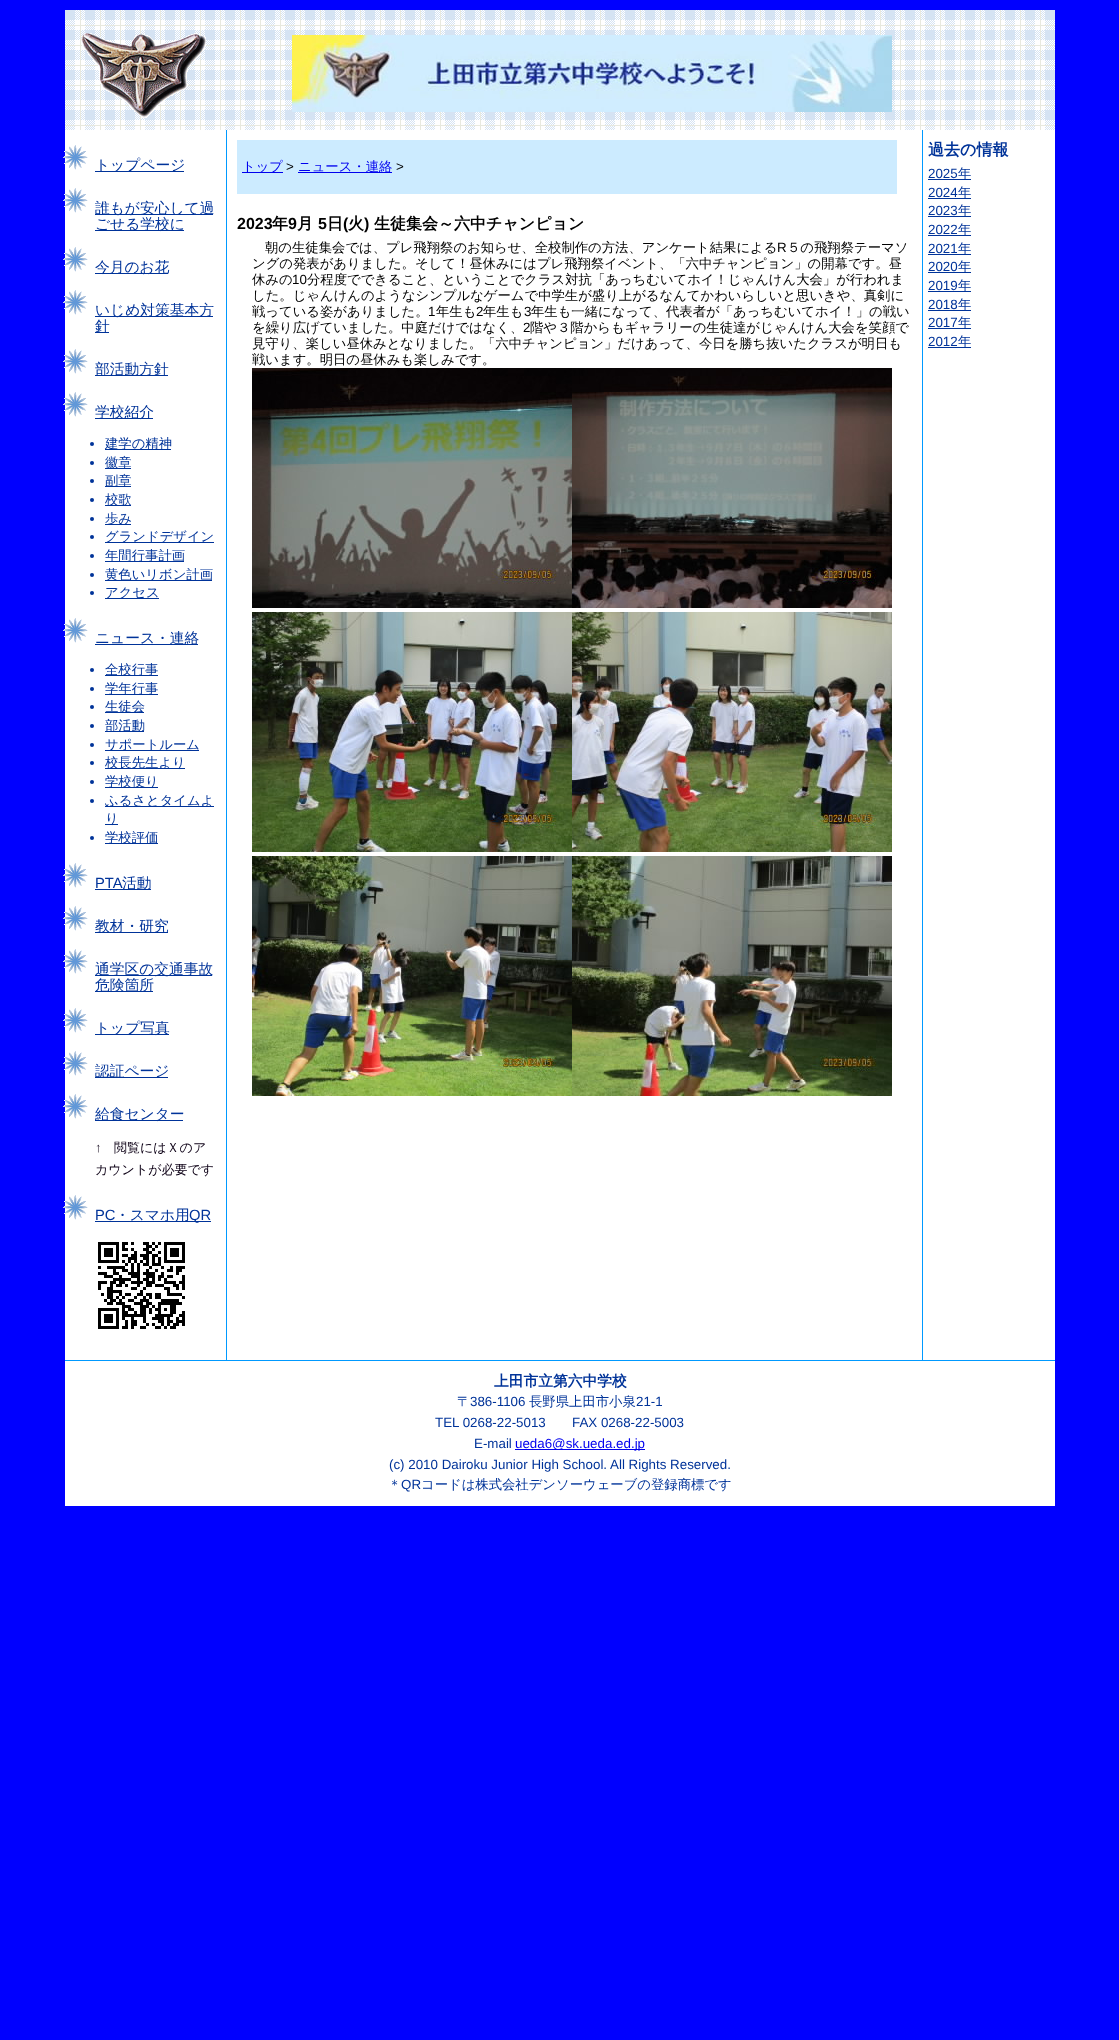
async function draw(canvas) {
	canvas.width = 1119;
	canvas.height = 2040;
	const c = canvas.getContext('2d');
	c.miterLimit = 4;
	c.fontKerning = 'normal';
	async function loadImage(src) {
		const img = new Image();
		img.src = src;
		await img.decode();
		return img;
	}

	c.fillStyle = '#00f';
	c.fillRect(0, 0, 1119, 2040);
	c.drawImage(await loadImage('img1.png'), 65, 10, 990, 120);
	c.drawImage(await loadImage('img2.png'), 81, 33, 125, 85);
	c.drawImage(await loadImage('img3.png'), 292, 35, 600, 77);
	c.fillStyle = '#fff';
	c.fillRect(65, 130, 161, 1230);
	c.drawImage(await loadImage('img4.png'), 63, 145, 25, 25);
	c.fillStyle = '#039';
	c.fillRect(95, 171, 89, 1);
	c.font = '500 14.75px WenQuanYi Zen Hei';
	c.fillText('トップページ', 95, 170);
	c.drawImage(await loadImage('img4.png'), 63, 188, 25, 25);
	c.fillRect(95, 214, 118, 1);
	c.fillText('誰もが安心して過', 95, 213);
	c.fillRect(95, 230, 89, 1);
	c.fillText('ごせる学校に', 95, 229);
	c.drawImage(await loadImage('img4.png'), 63, 247, 25, 25);
	c.fillRect(95, 273, 73, 1);
	c.fillText('今月のお花', 95, 272);
	c.drawImage(await loadImage('img4.png'), 63, 290, 25, 25);
	c.fillRect(95, 316, 118, 1);
	c.fillText('いじめ対策基本方', 95, 315);
	c.fillRect(95, 332, 14, 1);
	c.fillText('針', 95, 331);
	c.drawImage(await loadImage('img4.png'), 63, 349, 25, 25);
	c.fillRect(95, 375, 73, 1);
	c.fillText('部活動方針', 95, 374);
	c.drawImage(await loadImage('img4.png'), 63, 392, 25, 25);
	c.fillRect(95, 418, 58, 1);
	c.fillText('学校紹介', 95, 417);
	c.beginPath();
	c.arc(92, 444, 2, 0, 2 * Math.PI);
	c.fill();
	c.fillRect(105, 449, 66, 1);
	c.font = '500 13.35px WenQuanYi Zen Hei';
	c.fillText('建学の精神', 105, 448);
	c.beginPath();
	c.arc(92, 463, 2, 0, 2 * Math.PI);
	c.fill();
	c.fillRect(105, 468, 26, 1);
	c.fillText('徽章', 105, 467);
	c.beginPath();
	c.arc(92, 481, 2, 0, 2 * Math.PI);
	c.fill();
	c.fillRect(105, 486, 26, 1);
	c.fillText('副章', 105, 485);
	c.beginPath();
	c.arc(92, 500, 2, 0, 2 * Math.PI);
	c.fill();
	c.fillRect(105, 505, 26, 1);
	c.fillText('校歌', 105, 504);
	c.beginPath();
	c.arc(92, 519, 2, 0, 2 * Math.PI);
	c.fill();
	c.fillRect(105, 524, 26, 1);
	c.fillText('歩み', 105, 523);
	c.beginPath();
	c.arc(92, 537, 2, 0, 2 * Math.PI);
	c.fill();
	c.fillRect(105, 542, 109, 1);
	c.fillText('グランドデザイン', 105, 541);
	c.beginPath();
	c.arc(92, 556, 2, 0, 2 * Math.PI);
	c.fill();
	c.fillRect(105, 561, 79, 1);
	c.fillText('年間行事計画', 105, 560);
	c.beginPath();
	c.arc(92, 575, 2, 0, 2 * Math.PI);
	c.fill();
	c.fillRect(105, 580, 107, 1);
	c.fillText('黄色いリボン計画', 105, 579);
	c.beginPath();
	c.arc(92, 593, 2, 0, 2 * Math.PI);
	c.fill();
	c.fillRect(105, 598, 54, 1);
	c.fillText('アクセス', 105, 597);
	c.drawImage(await loadImage('img4.png'), 63, 618, 25, 25);
	c.fillRect(95, 644, 103, 1);
	c.font = '500 14.75px WenQuanYi Zen Hei';
	c.fillText('ニュース・連絡', 95, 643);
	c.beginPath();
	c.arc(92, 670, 2, 0, 2 * Math.PI);
	c.fill();
	c.fillRect(105, 675, 53, 1);
	c.font = '500 13.35px WenQuanYi Zen Hei';
	c.fillText('全校行事', 105, 674);
	c.beginPath();
	c.arc(92, 689, 2, 0, 2 * Math.PI);
	c.fill();
	c.fillRect(105, 694, 53, 1);
	c.fillText('学年行事', 105, 693);
	c.beginPath();
	c.arc(92, 707, 2, 0, 2 * Math.PI);
	c.fill();
	c.fillRect(105, 712, 39, 1);
	c.fillText('生徒会', 105, 711);
	c.beginPath();
	c.arc(92, 726, 2, 0, 2 * Math.PI);
	c.fill();
	c.fillRect(105, 731, 39, 1);
	c.fillText('部活動', 105, 730);
	c.beginPath();
	c.arc(92, 745, 2, 0, 2 * Math.PI);
	c.fill();
	c.fillRect(105, 750, 94, 1);
	c.fillText('サポートルーム', 105, 749);
	c.beginPath();
	c.arc(92, 763, 2, 0, 2 * Math.PI);
	c.fill();
	c.fillRect(105, 768, 80, 1);
	c.fillText('校長先生より', 105, 767);
	c.beginPath();
	c.arc(92, 782, 2, 0, 2 * Math.PI);
	c.fill();
	c.fillRect(105, 787, 53, 1);
	c.fillText('学校便り', 105, 786);
	c.beginPath();
	c.arc(92, 801, 2, 0, 2 * Math.PI);
	c.fill();
	c.fillRect(105, 806, 109, 1);
	c.fillText('ふるさとタイムよ', 105, 805);
	c.fillRect(105, 824, 13, 1);
	c.fillText('り', 105, 823);
	c.beginPath();
	c.arc(92, 838, 2, 0, 2 * Math.PI);
	c.fill();
	c.fillRect(105, 843, 53, 1);
	c.fillText('学校評価', 105, 842);
	c.drawImage(await loadImage('img4.png'), 63, 863, 25, 25);
	c.font = '14.75px Liberation Sans';
	c.fillText('PTA', 95, 888);
	c.fillRect(95, 889, 56, 1);
	c.font = '500 14.75px WenQuanYi Zen Hei';
	c.fillText('活動', 122, 888);
	c.drawImage(await loadImage('img4.png'), 63, 906, 25, 25);
	c.fillRect(95, 932, 73, 1);
	c.fillText('教材・研究', 95, 931);
	c.drawImage(await loadImage('img4.png'), 63, 949, 25, 25);
	c.fillRect(95, 975, 117, 1);
	c.fillText('通学区の交通事故', 95, 974);
	c.fillRect(95, 991, 58, 1);
	c.fillText('危険箇所', 95, 990);
	c.drawImage(await loadImage('img4.png'), 63, 1008, 25, 25);
	c.fillRect(95, 1034, 74, 1);
	c.fillText('トップ写真', 95, 1033);
	c.drawImage(await loadImage('img4.png'), 63, 1051, 25, 25);
	c.fillRect(95, 1077, 73, 1);
	c.fillText('認証ページ', 95, 1076);
	c.drawImage(await loadImage('img4.png'), 63, 1094, 25, 25);
	c.fillRect(95, 1120, 88, 1);
	c.fillText('給食センター', 95, 1119);
	c.font = '13px Liberation Sans';
	c.fillStyle = '#0d0116';
	c.fillText('↑', 95, 1152);
	c.font = '500 13px WenQuanYi Zen Hei';
	c.fillText('閲覧にはＸのア', 114, 1152);
	c.fillText('カウントが必要です', 95, 1174);
	c.drawImage(await loadImage('img4.png'), 63, 1195, 25, 25);
	c.font = '14.75px Liberation Sans';
	c.fillStyle = '#039';
	c.fillText('PC', 95, 1220);
	c.fillRect(95, 1221, 116, 1);
	c.font = '500 14.75px WenQuanYi Zen Hei';
	c.fillText('・スマホ用', 115, 1220);
	c.font = '14.75px Liberation Sans';
	c.fillText('QR', 189, 1220);
	c.drawImage(await loadImage('img5.png'), 98, 1242, 87, 87);
	for (const [x, y, w, h, color] of [
		[227, 130, 695, 1230, '#fff'],
		[922, 130, 1, 1230, '#09f'],
		[226, 130, 1, 1230, '#09f'],
		[237, 140, 660, 54, '#ccebff'],
		[242, 172, 41, 1, '#00e'],
	]) {
		c.fillStyle = color;
		c.fillRect(x, y, w, h);
	}
	c.font = '500 13.35px WenQuanYi Zen Hei';
	c.fillText('トップ', 242, 171);
	c.font = '13.35px Liberation Sans';
	c.fillStyle = '#000';
	c.fillText('>', 286, 171);
	c.fillStyle = '#00e';
	c.fillRect(298, 172, 94, 1);
	c.font = '500 13.35px WenQuanYi Zen Hei';
	c.fillText('ニュース・連絡', 298, 171);
	c.font = '13.35px Liberation Sans';
	c.fillStyle = '#000';
	c.fillText('>', 396, 171);
	c.font = 'bold 16px Liberation Sans';
	c.fillText('2023', 237, 229);
	c.font = 'bold 16px WenQuanYi Zen Hei';
	c.fillText('年', 272, 229);
	c.font = 'bold 16px Liberation Sans';
	c.fillText('9', 288, 229);
	c.font = 'bold 16px WenQuanYi Zen Hei';
	c.fillText('月', 297, 229);
	c.font = 'bold 16px Liberation Sans';
	c.fillText('5', 318, 229);
	c.font = 'bold 16px WenQuanYi Zen Hei';
	c.fillText('日', 327, 229);
	c.font = 'bold 16px Liberation Sans';
	c.fillText('(', 343, 229);
	c.font = 'bold 16px WenQuanYi Zen Hei';
	c.fillText('火', 348, 229);
	c.font = 'bold 16px Liberation Sans';
	c.fillText(')', 364, 229);
	c.font = 'bold 16px WenQuanYi Zen Hei';
	c.fillText('生徒集会～六中チャンピョン', 374, 229);
	c.font = '500 13.35px WenQuanYi Zen Hei';
	c.fillText('朝の生徒集会では、プレ飛翔祭のお知らせ、全校制作の方法、アンケート結果による', 265, 252);
	c.font = '13.35px Liberation Sans';
	c.fillText('R', 777, 252);
	c.font = '500 13.35px WenQuanYi Zen Hei';
	for (const [text, x, y] of [
		['５の飛翔祭テーマソ', 787, 252],
		['ングの発表がありました。そして！昼休みにはプレ飛翔祭イベント、「六中チャンピョン」の開幕です。昼', 252, 268],
		['休みの', 252, 284],
	]) {
		c.fillText(text, x, y);
	}
	c.font = '13.35px Liberation Sans';
	c.fillText('10', 292, 284);
	c.font = '500 13.35px WenQuanYi Zen Hei';
	for (const [text, x, y] of [
		['分程度でできること、ということでクラス対抗「あっちむいてホイ！じゃんけん大会」が行われま', 307, 284],
		['した。じゃんけんのようなシンプルなゲームで中学生が盛り上がるなんてかわいらしいと思いきや、真剣に', 252, 300],
		['戦っている姿がありました。', 252, 316],
	]) {
		c.fillText(text, x, y);
	}
	c.font = '13.35px Liberation Sans';
	c.fillText('1', 428, 316);
	c.font = '500 13.35px WenQuanYi Zen Hei';
	c.fillText('年生も', 436, 316);
	c.font = '13.35px Liberation Sans';
	c.fillText('2', 476, 316);
	c.font = '500 13.35px WenQuanYi Zen Hei';
	c.fillText('年生も', 483, 316);
	c.font = '13.35px Liberation Sans';
	c.fillText('3', 524, 316);
	c.font = '500 13.35px WenQuanYi Zen Hei';
	c.fillText('年生も一緒になって、代表者が「あっちむいてホイ！」の戦い', 531, 316);
	c.fillText('を繰り広げていました。中庭だけではなく、', 252, 332);
	c.font = '13.35px Liberation Sans';
	c.fillText('2', 523, 332);
	c.font = '500 13.35px WenQuanYi Zen Hei';
	for (const [text, x, y] of [
		['階や３階からもギャラリーの生徒達がじゃんけん大会を笑顔で', 530, 332],
		['見守り、楽しい昼休みとなりました。「六中チャンピョン」だけあって、今日を勝ち抜いたクラスが明日も', 252, 348],
		['戦います。明日の昼休みも楽しみです。', 252, 364],
	]) {
		c.fillText(text, x, y);
	}
	c.drawImage(await loadImage('img6.png'), 252, 368, 320, 240);
	c.drawImage(await loadImage('img7.png'), 572, 368, 320, 240);
	c.drawImage(await loadImage('img8.png'), 252, 612, 320, 240);
	c.drawImage(await loadImage('img9.png'), 572, 612, 320, 240);
	c.drawImage(await loadImage('img10.png'), 252, 856, 320, 240);
	c.drawImage(await loadImage('img11.png'), 572, 856, 320, 240);
	c.fillStyle = '#fff';
	c.fillRect(923, 130, 132, 1230);
	c.font = 'bold 16px WenQuanYi Zen Hei';
	c.fillStyle = '#039';
	c.fillText('過去の情報', 928, 155);
	c.font = '13.35px Liberation Sans';
	c.fillText('2025', 928, 178);
	c.fillRect(928, 179, 43, 1);
	c.font = '500 13.35px WenQuanYi Zen Hei';
	c.fillText('年', 958, 178);
	c.font = '13.35px Liberation Sans';
	c.fillText('2024', 928, 197);
	c.fillRect(928, 198, 43, 1);
	c.font = '500 13.35px WenQuanYi Zen Hei';
	c.fillText('年', 958, 197);
	c.font = '13.35px Liberation Sans';
	c.fillText('2023', 928, 215);
	c.fillRect(928, 216, 43, 1);
	c.font = '500 13.35px WenQuanYi Zen Hei';
	c.fillText('年', 958, 215);
	c.font = '13.35px Liberation Sans';
	c.fillText('2022', 928, 234);
	c.fillRect(928, 235, 43, 1);
	c.font = '500 13.35px WenQuanYi Zen Hei';
	c.fillText('年', 958, 234);
	c.font = '13.35px Liberation Sans';
	c.fillText('2021', 928, 253);
	c.fillRect(928, 254, 43, 1);
	c.font = '500 13.35px WenQuanYi Zen Hei';
	c.fillText('年', 958, 253);
	c.font = '13.35px Liberation Sans';
	c.fillText('2020', 928, 271);
	c.fillRect(928, 272, 43, 1);
	c.font = '500 13.35px WenQuanYi Zen Hei';
	c.fillText('年', 958, 271);
	c.font = '13.35px Liberation Sans';
	c.fillText('2019', 928, 290);
	c.fillRect(928, 291, 43, 1);
	c.font = '500 13.35px WenQuanYi Zen Hei';
	c.fillText('年', 958, 290);
	c.font = '13.35px Liberation Sans';
	c.fillText('2018', 928, 309);
	c.fillRect(928, 310, 43, 1);
	c.font = '500 13.35px WenQuanYi Zen Hei';
	c.fillText('年', 958, 309);
	c.font = '13.35px Liberation Sans';
	c.fillText('2017', 928, 327);
	c.fillRect(928, 328, 43, 1);
	c.font = '500 13.35px WenQuanYi Zen Hei';
	c.fillText('年', 958, 327);
	c.font = '13.35px Liberation Sans';
	c.fillText('2012', 928, 346);
	c.fillRect(928, 347, 43, 1);
	c.font = '500 13.35px WenQuanYi Zen Hei';
	c.fillText('年', 958, 346);
	c.fillStyle = '#fff';
	c.fillRect(65, 1361, 990, 145);
	c.fillStyle = '#09f';
	c.fillRect(65, 1360, 990, 1);
	c.font = 'bold 14.75px WenQuanYi Zen Hei';
	c.fillStyle = '#039';
	c.fillText('上田市立第六中学校', 494, 1386);
	c.font = '500 13.35px WenQuanYi Zen Hei';
	c.fillText('〒', 457, 1406);
	c.font = '13.35px Liberation Sans';
	c.fillText('386-1106', 470, 1406);
	c.font = '500 13.35px WenQuanYi Zen Hei';
	c.fillText('長野県上田市小泉', 529, 1406);
	c.font = '13.35px Liberation Sans';
	for (const [text, x, y] of [
		['21-1', 636, 1406],
		['TEL 0268-22-5013', 435, 1427],
		['FAX 0268-22-5003', 572, 1427],
		['E-mail', 474, 1448],
	]) {
		c.fillText(text, x, y);
	}
	c.fillStyle = '#00e';
	c.fillRect(515, 1449, 130, 1);
	c.fillText('ueda6@sk.ueda.ed.jp', 515, 1448);
	c.fillStyle = '#039';
	c.fillText('(c) 2010 Dairoku Junior High School. All Rights Reserved.', 389, 1469);
	c.font = '500 13.35px WenQuanYi Zen Hei';
	c.fillText('＊', 388, 1489);
	c.font = '13.35px Liberation Sans';
	c.fillText('QR', 401, 1489);
	c.font = '500 13.35px WenQuanYi Zen Hei';
	c.fillText('コードは株式会社デンソーウェーブの登録商標です', 421, 1489);
}

draw(document.querySelector('canvas'));
